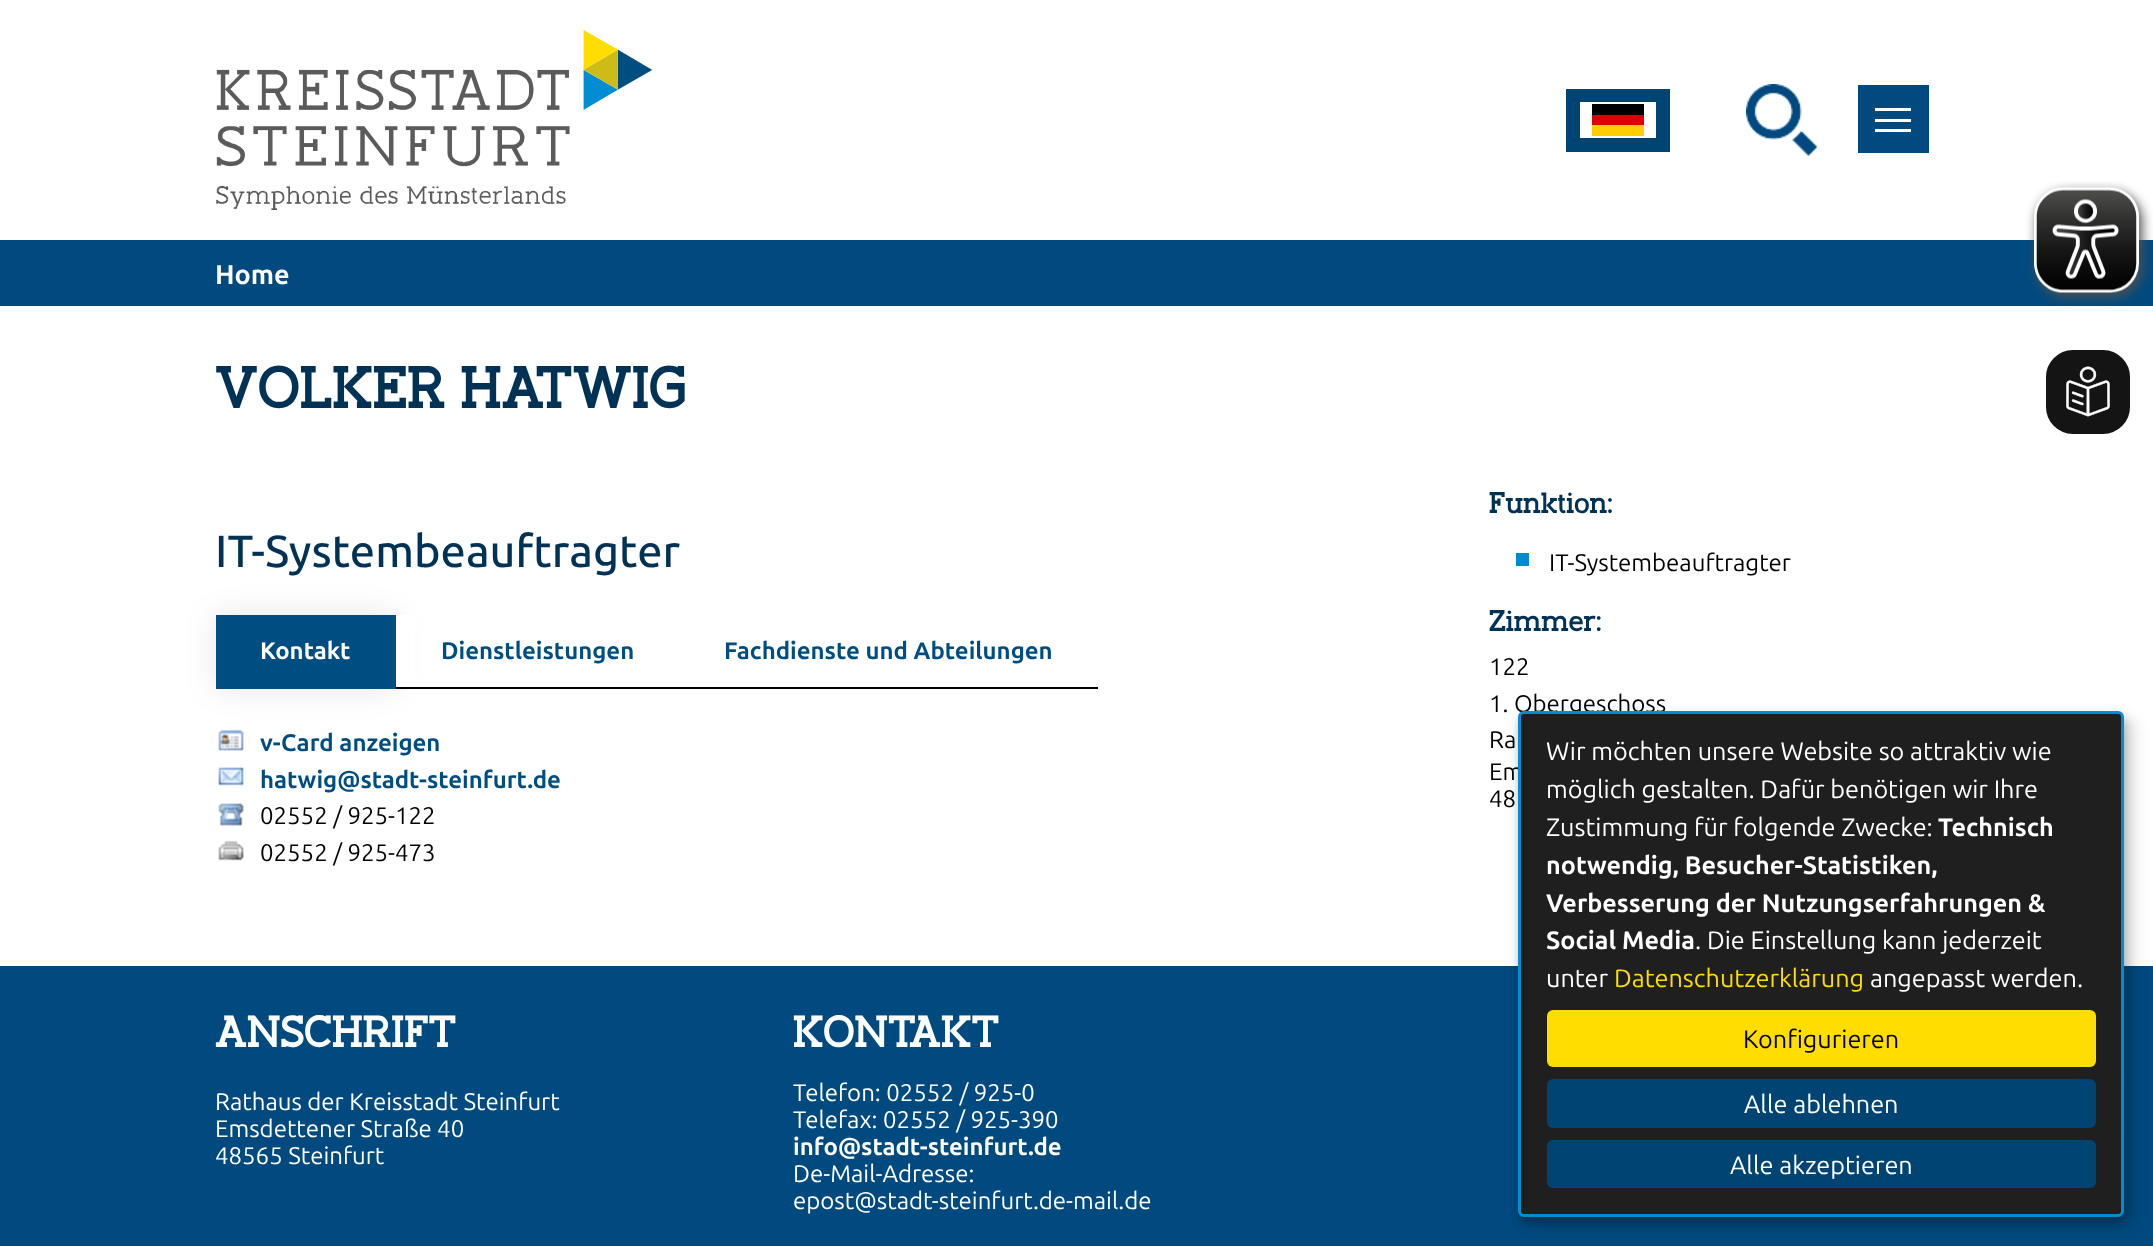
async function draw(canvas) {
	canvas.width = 2153;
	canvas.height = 1246;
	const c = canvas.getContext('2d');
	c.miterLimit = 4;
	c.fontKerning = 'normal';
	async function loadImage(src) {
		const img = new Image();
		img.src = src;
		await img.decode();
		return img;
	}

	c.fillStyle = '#fff';
	c.fillRect(0, 0, 2153, 1246);
	c.fillStyle = '#004a7f';
	c.fillRect(0, 240, 2153, 66);
	c.drawImage(await loadImage('img1.png'), 2026, 181, 127, 127);
	for (const [x, y, w, h, color] of [
		[1858, 85, 71, 68, '#004a7f'],
		[1875, 119, 36, 3, '#fff'],
		[1875, 108, 36, 3, '#fff'],
		[1875, 129, 36, 3, '#fff'],
	]) {
		c.fillStyle = color;
		c.fillRect(x, y, w, h);
	}
	c.drawImage(await loadImage('img2.png'), 216, 30, 437, 180);
	for (const [x, y, w, h, color] of [
		[1566, 89, 104, 63, '#004473'],
		[1580, 102, 76, 36, '#fff'],
		[1592, 104, 52, 11, '#000'],
		[1592, 115, 52, 10, '#d00'],
		[1592, 125, 52, 11, '#ffce00'],
	]) {
		c.fillStyle = color;
		c.fillRect(x, y, w, h);
	}
	c.drawImage(await loadImage('img3.png'), 1746, 84, 72, 72);
	c.font = 'bold 27px Ubuntu';
	c.fillStyle = '#fff';
	c.fillText('Home', 215, 284);
	c.font = 'bold 60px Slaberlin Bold';
	c.fillStyle = '#003255';
	c.fillText('VOLKER HATWIG', 215, 408);
	c.font = '500 45px Ubuntu';
	c.fillText('IT-Systembeauftragter', 215, 567);
	c.fillStyle = '#0000001a';
	c.filter = 'blur(15px)';
	c.beginPath();
	c.rect(216, 615, 180, 74);
	c.fill();
	c.filter = 'none';
	c.fillStyle = '#004e81';
	c.fillRect(216, 615, 180, 74);
	c.font = 'bold 24px Ubuntu';
	c.fillStyle = '#fff';
	c.fillText('Kontakt', 260, 659);
	c.fillRect(396, 615, 19, 72);
	c.fillStyle = '#000';
	c.fillRect(396, 687, 702, 2);
	c.fillStyle = '#004e81';
	c.fillText('Dienstleistungen', 441, 659);
	c.fillText('Fachdienste und Abteilungen', 724, 659);
	c.drawImage(await loadImage('img4.png'), 218, 729, 26, 22);
	c.fillText('v-Card anzeigen', 260, 751);
	c.drawImage(await loadImage('img5.png'), 218, 767, 26, 19);
	c.fillText('hatwig@stadt-steinfurt.de', 260, 788);
	c.drawImage(await loadImage('img6.png'), 218, 803, 26, 23);
	c.font = '24px Ubuntu';
	c.fillStyle = '#000';
	c.fillText('02552 / 925-122', 260, 824);
	c.drawImage(await loadImage('img7.png'), 218, 840, 26, 21);
	c.fillText('02552 / 925-473', 260, 861);
	c.font = 'bold 30px Slaberlin Bold';
	c.fillStyle = '#003255';
	c.fillText('Funktion:', 1489, 513);
	c.fillStyle = '#008bd0';
	c.fillRect(1516, 553, 13, 13);
	c.font = '24px Ubuntu';
	c.fillStyle = '#000';
	c.fillText('IT-Systembeauftragter', 1549, 571);
	c.font = 'bold 30px Slaberlin Bold';
	c.fillStyle = '#003255';
	c.fillText('Zimmer:', 1489, 631);
	c.font = '24px Ubuntu';
	c.fillStyle = '#000';
	for (const [text, x, y] of [
		['122', 1489, 675],
		['1. Obergeschoss', 1489, 712],
		['Ra', 1489, 748],
		['Em', 1489, 780],
		['48', 1489, 807],
	]) {
		c.fillText(text, x, y);
	}
	c.fillStyle = '#004a7f';
	c.fillRect(0, 966, 2153, 280);
	c.font = 'bold 45px Slaberlin Bold';
	c.fillStyle = '#fff';
	c.fillText('ANSCHRIFT', 215, 1047);
	c.font = '24px Ubuntu';
	for (const [text, x, y] of [
		['Rathaus der Kreisstadt Steinfurt', 215, 1110],
		['Emsdettener Straße 40', 215, 1137],
		['48565 Steinfurt', 215, 1164],
	]) {
		c.fillText(text, x, y);
	}
	c.font = 'bold 45px Slaberlin Bold';
	c.fillText('KONTAKT', 793, 1047);
	c.font = '24px Ubuntu';
	c.fillText('Telefon: 02552 / 925-0', 793, 1101);
	c.fillText('Telefax: 02552 / 925-390', 793, 1128);
	c.font = 'bold 24px Ubuntu';
	c.fillText('info@stadt-steinfurt.de', 793, 1155);
	c.font = '24px Ubuntu';
	c.fillText('De-Mail-Adresse:', 793, 1182);
	c.fillText('epost@stadt-steinfurt.de-mail.de', 793, 1209);
	c.fillStyle = '#151414';
	c.beginPath();
	c.roundRect(2044.5, 348.5, 87, 87, 28.5);
	c.fill();
	c.strokeStyle = '#fff';
	c.lineWidth = 3;
	c.stroke();
	c.drawImage(await loadImage('img8.png'), 2066, 366, 44, 51);
	c.fillStyle = '#00000030';
	c.filter = 'blur(7.5px)';
	c.beginPath();
	c.roundRect(1526, 719, 606, 505, 6);
	c.fill();
	c.filter = 'none';
	c.fillStyle = '#00000033';
	c.filter = 'blur(4.5px)';
	c.beginPath();
	c.roundRect(1518, 717, 606, 506, 6);
	c.fill();
	c.filter = 'none';
	c.fillStyle = '#1f1f1f';
	c.beginPath();
	c.roundRect(1519.5, 712.5, 603, 503, 4.5);
	c.fill();
	c.strokeStyle = '#008dd2';
	c.stroke();
	c.font = '25.2px Ubuntu';
	c.fillStyle = '#fff';
	for (const [text, x, y] of [
		['Wir möchten unsere Website so attraktiv wie', 1546, 760],
		['möglich gestalten. Dafür benötigen wir Ihre', 1546, 798],
		['Zustimmung für folgende Zwecke:', 1546, 836],
	]) {
		c.fillText(text, x, y);
	}
	c.font = 'bold 25.2px Ubuntu';
	for (const [text, x, y] of [
		['Technisch', 1938, 836],
		['notwendig, Besucher-Statistiken,', 1546, 874],
		['Verbesserung der Nutzungserfahrungen &', 1546, 912],
		['Social Media', 1546, 949],
	]) {
		c.fillText(text, x, y);
	}
	c.font = '25.2px Ubuntu';
	c.fillText('. Die Einstellung kann jederzeit', 1695, 949);
	c.fillText('unter', 1546, 987);
	c.fillStyle = '#fd0';
	c.fillText('Datenschutzerklärung', 1614, 987);
	c.fillStyle = '#fff';
	c.fillText('angepasst werden.', 1870, 987);
	c.fillStyle = '#fd0';
	c.beginPath();
	c.roundRect(1547, 1010, 549, 57, 6);
	c.fill();
	c.fillStyle = '#000';
	c.fillText('Konfigurieren', 1743, 1048);
	c.fillStyle = '#004473';
	c.beginPath();
	c.roundRect(1547, 1079, 549, 49, 6);
	c.fill();
	c.fillStyle = '#fff';
	c.fillText('Alle ablehnen', 1744, 1113);
	c.fillStyle = '#004473';
	c.beginPath();
	c.roundRect(1547, 1140, 549, 48, 6);
	c.fill();
	c.fillStyle = '#fff';
	c.fillText('Alle akzeptieren', 1730, 1174);
}

draw(document.querySelector('canvas'));
